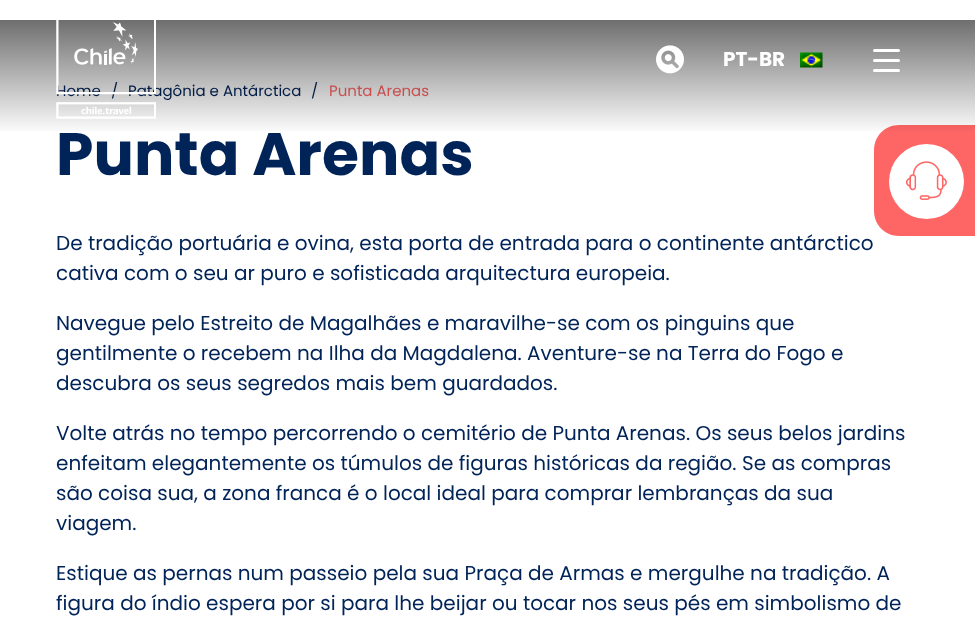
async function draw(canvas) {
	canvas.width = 975;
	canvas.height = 634;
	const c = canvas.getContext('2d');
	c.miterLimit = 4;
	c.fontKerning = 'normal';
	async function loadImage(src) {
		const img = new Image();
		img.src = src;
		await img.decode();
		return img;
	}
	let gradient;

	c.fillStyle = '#fff';
	c.fillRect(0, 0, 975, 634);
	c.font = '15px Poppins';
	c.fillStyle = '#002358';
	for (const [text, x, y] of [
		['Home', 56, 96],
		['/', 111, 96],
		['Patagônia e Antárctica', 128, 96],
		['/', 311, 96],
	]) {
		c.fillText(text, x, y);
	}
	c.fillStyle = '#fe6565';
	c.fillText('Punta Arenas', 329, 96);
	c.beginPath();
	c.moveTo(899, 125);
	c.lineTo(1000, 125);
	c.lineTo(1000, 236);
	c.lineTo(899, 236);
	c.bezierCurveTo(885, 236, 874, 225, 874, 211);
	c.lineTo(874, 150);
	c.bezierCurveTo(874, 136, 885, 125, 899, 125);
	c.closePath();
	c.fill();
	gradient = c.createLinearGradient(488, 20, 488, 135);
	gradient.addColorStop(0, '#00000091');
	gradient.addColorStop(1, '#00000000');
	c.fillStyle = gradient;
	c.fillRect(0, 20, 975, 111);
	c.drawImage(await loadImage('img1.png'), 56, 20, 100, 99);
	c.drawImage(await loadImage('img2.png'), 656, 45, 28, 29);
	c.font = 'bold 20px Poppins';
	c.fillStyle = '#fff';
	c.fillText('PT-BR', 723, 66);
	c.drawImage(await loadImage('img3.png'), 800, 52, 23, 16);
	c.beginPath();
	c.roundRect(873, 49, 27, 3, 1.5);
	c.fill();
	c.beginPath();
	c.roundRect(873, 59, 27, 3, 1.5);
	c.fill();
	c.beginPath();
	c.roundRect(873, 69, 27, 3, 1.5);
	c.fill();
	c.font = 'bold 60px Poppins';
	c.fillStyle = '#002358';
	c.fillText('Punta Arenas', 56, 175);
	c.font = '20px Poppins';
	for (const [text, x, y] of [
		['De tradição portuária e ovina, esta porta de entrada para o continente antárctico', 56, 250],
		['cativa com o seu ar puro e sofisticada arquitectura europeia.', 56, 280],
		['Navegue pelo Estreito de Magalhães e maravilhe-se com os pinguins que', 56, 330],
		['gentilmente o recebem na Ilha da Magdalena. Aventure-se na Terra do Fogo e', 56, 360],
		['descubra os seus segredos mais bem guardados.', 56, 390],
		['Volte atrás no tempo percorrendo o cemitério de Punta Arenas. Os seus belos jardins', 56, 440],
		['enfeitam elegantemente os túmulos de figuras históricas da região. Se as compras', 56, 470],
		['são coisa sua, a zona franca é o local ideal para comprar lembranças da sua', 56, 500],
		['viagem.', 56, 530],
		['Estique as pernas num passeio pela sua Praça de Armas e mergulhe na tradição. A', 56, 580],
		['figura do índio espera por si para lhe beijar ou tocar nos seus pés em simbolismo de', 56, 610],
	]) {
		c.fillText(text, x, y);
	}
	c.fillStyle = '#fff';
	c.beginPath();
	c.arc(926.5, 181.5, 37.5, 0, 2 * Math.PI);
	c.fill();
	c.drawImage(await loadImage('img4.png'), 906, 161, 41, 39);
}

draw(document.querySelector('canvas'));
